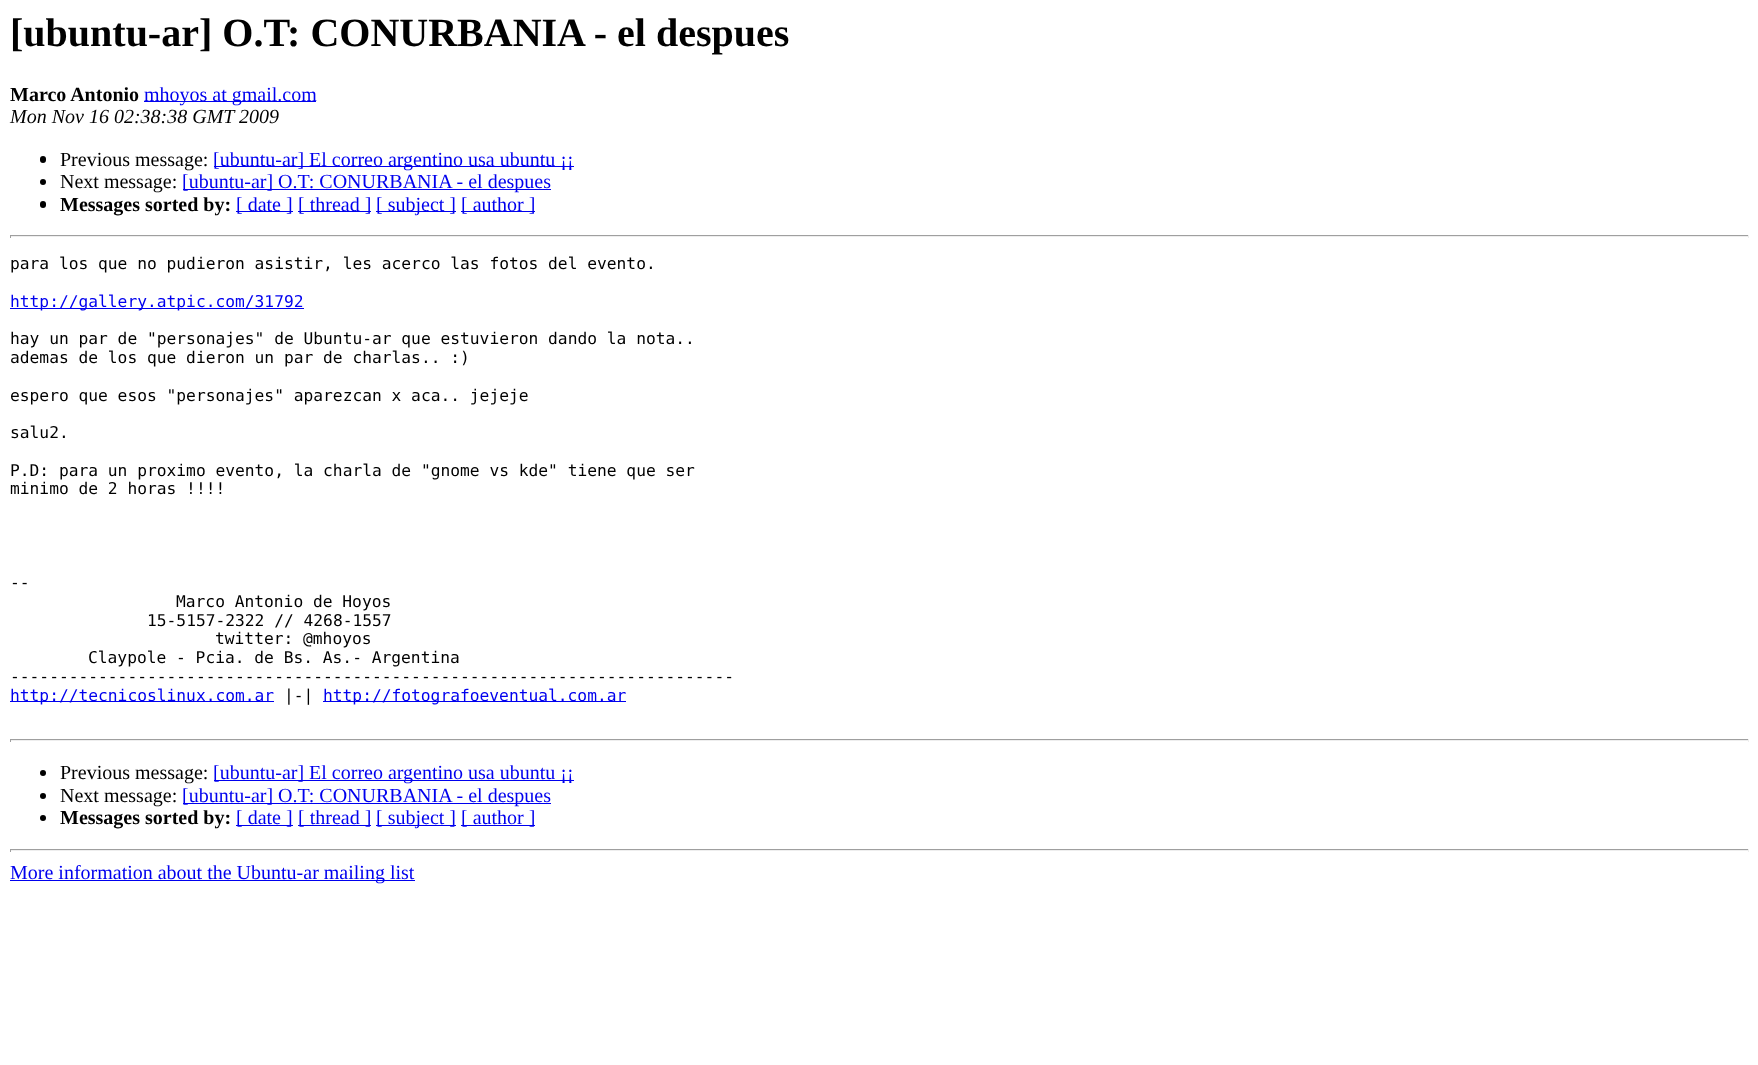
async function draw(canvas) {
	canvas.width = 1758;
	canvas.height = 1065;
	const c = canvas.getContext('2d');
	c.miterLimit = 4;
	c.fontKerning = 'normal';

	c.fillStyle = '#fff';
	c.fillRect(0, 0, 1758, 1065);
	c.font = 'bold 40px Liberation Serif';
	c.fillStyle = '#000';
	c.fillText('[ubuntu-ar] O.T: CONURBANIA - el despues', 10, 46);
	c.font = 'bold 20px Liberation Serif';
	c.fillText('Marco Antonio', 10, 101);
	c.fillStyle = '#00e';
	c.fillRect(144, 101, 172, 1);
	c.font = '20px Liberation Serif';
	c.fillText('mhoyos at gmail.com', 144, 101);
	c.font = 'italic 20px Liberation Serif';
	c.fillStyle = '#000';
	c.fillText('Mon Nov 16 02:38:38 GMT 2009', 10, 123);
	c.beginPath();
	c.roundRect(40, 156, 6, 7, 3);
	c.fill();
	c.font = '20px Liberation Serif';
	c.fillText('Previous message:', 60, 166);
	c.fillStyle = '#00e';
	c.fillRect(214, 166, 360, 1);
	c.fillText('[ubuntu-ar] El correo argentino usa ubuntu ¡¡', 213, 166);
	c.fillStyle = '#000';
	c.beginPath();
	c.arc(43, 182, 3, 0, 2 * Math.PI);
	c.fill();
	c.fillText('Next message:', 60, 188);
	c.fillStyle = '#00e';
	c.fillRect(183, 189, 368, 1);
	c.fillText('[ubuntu-ar] O.T: CONURBANIA - el despues', 182, 188);
	c.fillStyle = '#000';
	c.beginPath();
	c.roundRect(40, 201, 6, 7, 3);
	c.fill();
	c.font = 'bold 20px Liberation Serif';
	c.fillText('Messages sorted by:', 60, 211);
	c.fillStyle = '#00e';
	c.fillRect(236, 211, 57, 1);
	c.font = '20px Liberation Serif';
	c.fillText('[ date ]', 236, 211);
	c.fillRect(298, 211, 73, 1);
	c.fillText('[ thread ]', 298, 211);
	c.fillRect(376, 211, 80, 1);
	c.fillText('[ subject ]', 376, 211);
	c.fillRect(461, 211, 74, 1);
	c.fillText('[ author ]', 461, 211);
	for (const [x, y, w, h, color] of [
		[10, 235, 1739, 1, '#9f9f9f'],
		[1748, 235, 1, 3, '#eee'],
		[10, 236, 1739, 1, '#eee'],
		[10, 235, 1, 3, '#9f9f9f'],
	]) {
		c.fillStyle = color;
		c.fillRect(x, y, w, h);
	}
	c.font = '16.25px DejaVu Sans Mono';
	c.fillStyle = '#000';
	c.fillText('para los que no pudieron asistir, les acerco las fotos del evento.', 10, 269);
	c.fillStyle = '#00e';
	c.fillRect(10, 308, 294, 1);
	c.fillText('http://gallery.atpic.com/31792', 10, 307);
	c.fillStyle = '#000';
	for (const [text, x, y] of [
		['hay un par de "personajes" de Ubuntu-ar que estuvieron dando la nota..', 10, 344],
		['ademas de los que dieron un par de charlas.. :)', 10, 363],
		['espero que esos "personajes" aparezcan x aca.. jejeje', 10, 401],
		['salu2.', 10, 438],
		['P.D: para un proximo evento, la charla de "gnome vs kde" tiene que ser', 10, 476],
		['minimo de 2 horas !!!!', 10, 494],
		['--', 10, 588],
		['Marco Antonio de Hoyos', 176, 607],
		['15-5157-2322 // 4268-1557', 147, 626],
		['twitter: @mhoyos', 215, 644],
		['Claypole - Pcia. de Bs. As.- Argentina', 88, 663],
		['--------------------------------------------------------------------------', 10, 682],
	]) {
		c.fillText(text, x, y);
	}
	c.fillStyle = '#00e';
	c.fillRect(10, 701, 264, 1);
	c.fillText('http://tecnicoslinux.com.ar', 10, 701);
	c.fillStyle = '#000';
	c.fillText('|-|', 284, 701);
	c.fillStyle = '#00e';
	c.fillRect(323, 701, 303, 1);
	c.fillText('http://fotografoeventual.com.ar', 323, 701);
	for (const [x, y, w, h, color] of [
		[10, 739, 1739, 1, '#9f9f9f'],
		[1748, 739, 1, 3, '#eee'],
		[10, 740, 1739, 1, '#eee'],
		[10, 739, 1, 3, '#9f9f9f'],
	]) {
		c.fillStyle = color;
		c.fillRect(x, y, w, h);
	}
	c.fillStyle = '#000';
	c.beginPath();
	c.arc(43, 773, 3, 0, 2 * Math.PI);
	c.fill();
	c.font = '20px Liberation Serif';
	c.fillText('Previous message:', 60, 779);
	c.fillStyle = '#00e';
	c.fillRect(214, 780, 360, 1);
	c.fillText('[ubuntu-ar] El correo argentino usa ubuntu ¡¡', 213, 779);
	c.fillStyle = '#000';
	c.beginPath();
	c.arc(43, 796, 3, 0, 2 * Math.PI);
	c.fill();
	c.fillText('Next message:', 60, 802);
	c.fillStyle = '#00e';
	c.fillRect(183, 803, 368, 1);
	c.fillText('[ubuntu-ar] O.T: CONURBANIA - el despues', 182, 802);
	c.fillStyle = '#000';
	c.beginPath();
	c.arc(43, 818, 3, 0, 2 * Math.PI);
	c.fill();
	c.font = 'bold 20px Liberation Serif';
	c.fillText('Messages sorted by:', 60, 824);
	c.fillStyle = '#00e';
	c.fillRect(236, 825, 57, 1);
	c.font = '20px Liberation Serif';
	c.fillText('[ date ]', 236, 824);
	c.fillRect(298, 825, 73, 1);
	c.fillText('[ thread ]', 298, 824);
	c.fillRect(376, 825, 80, 1);
	c.fillText('[ subject ]', 376, 824);
	c.fillRect(461, 825, 74, 1);
	c.fillText('[ author ]', 461, 824);
	for (const [x, y, w, h, color] of [
		[10, 849, 1739, 1, '#9f9f9f'],
		[1748, 849, 1, 3, '#eee'],
		[10, 850, 1739, 1, '#eee'],
		[10, 849, 1, 3, '#9f9f9f'],
		[10, 880, 405, 1, '#00e'],
	]) {
		c.fillStyle = color;
		c.fillRect(x, y, w, h);
	}
	c.fillText('More information about the Ubuntu-ar mailing list', 10, 879);
}

draw(document.querySelector('canvas'));
